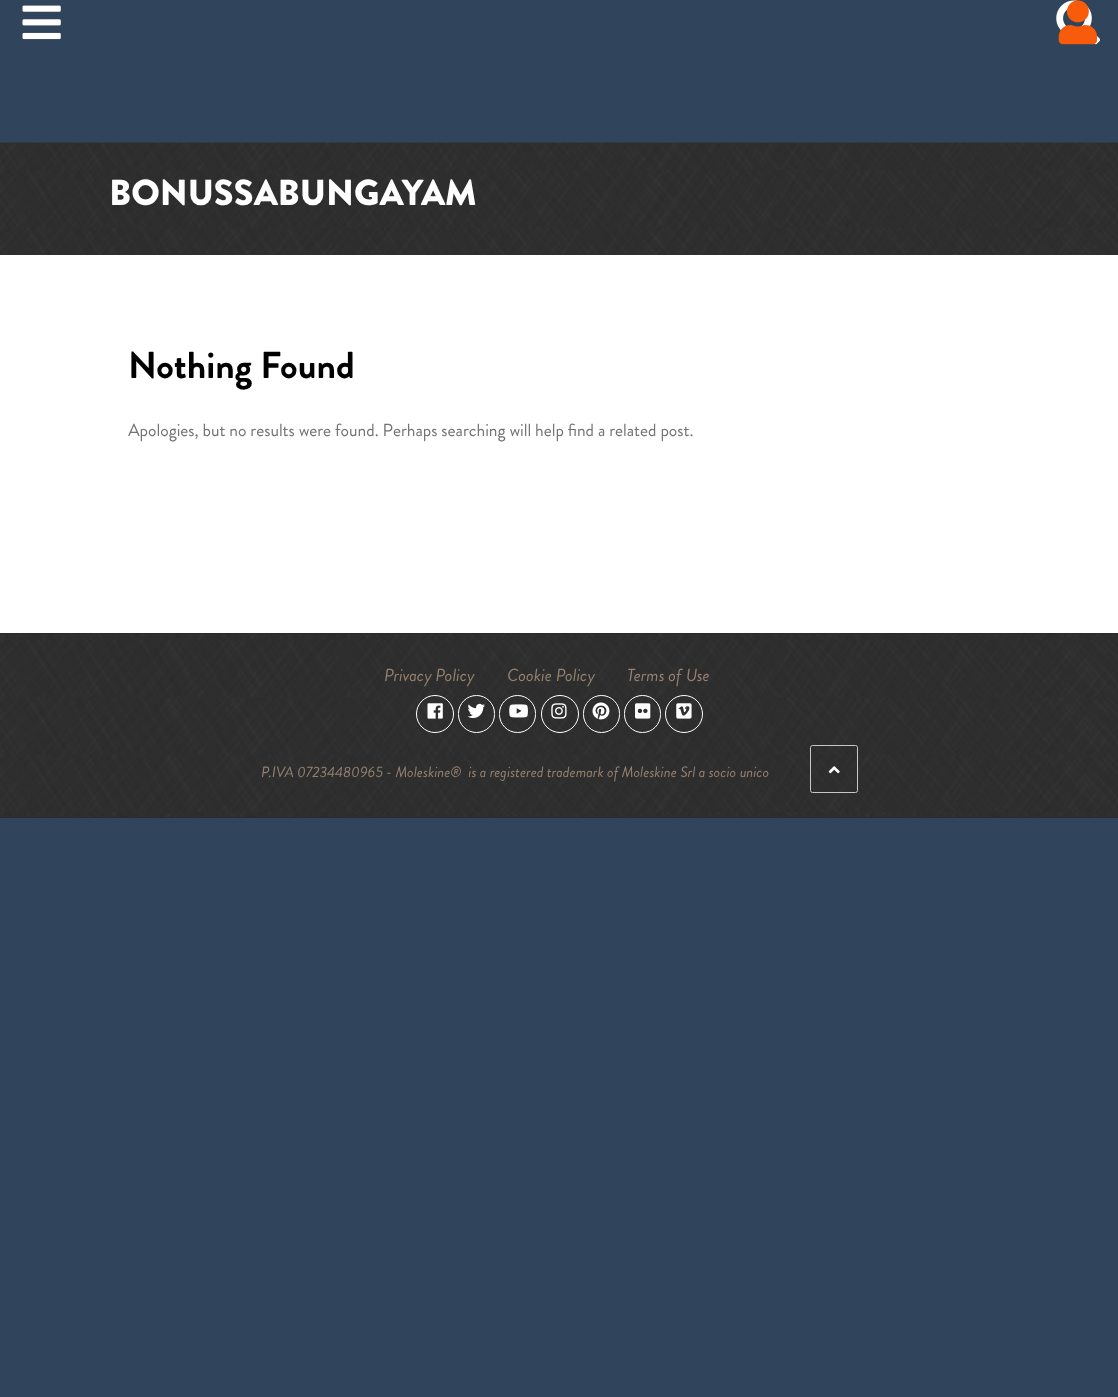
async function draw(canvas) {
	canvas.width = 1118;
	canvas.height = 1397;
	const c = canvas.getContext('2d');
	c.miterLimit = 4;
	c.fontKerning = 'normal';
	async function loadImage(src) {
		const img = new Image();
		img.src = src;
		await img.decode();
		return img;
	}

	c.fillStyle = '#30445c';
	c.fillRect(0, 0, 1118, 1397);
	c.drawImage(await loadImage('img1.png'), 1056, 0, 44, 45);
	c.drawImage(await loadImage('img2.png'), 22, 5, 39, 35);
	c.drawImage(await loadImage('img3.png'), 1058, 0, 40, 45);
	c.fillStyle = '#fff';
	c.fillRect(0, 255, 1118, 378);
	c.drawImage(await loadImage('img4.png'), 0, 142, 1118, 113);
	c.font = '900 36.25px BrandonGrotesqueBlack';
	c.fillText('BONUSSABUNGAYAM', 109, 205);
	c.font = 'bold 37.5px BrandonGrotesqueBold';
	c.fillStyle = '#000';
	c.fillText('Nothing Found', 128, 378);
	c.font = '17.5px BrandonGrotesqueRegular';
	c.fillStyle = '#737373';
	c.fillText('Apologies, but no results were found. Perhaps searching will help find a related post.', 128, 436);
	c.fillStyle = '#2b2b2b';
	c.fillRect(0, 817, 1118, 1);
	c.drawImage(await loadImage('img5.png'), 0, 633, 1118, 184);
	c.fillStyle = '#0000001c';
	c.fillRect(0, 633, 1118, 1);
	c.font = 'italic 17.5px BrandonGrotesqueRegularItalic';
	c.fillStyle = '#93806f';
	for (const [text, x, y] of [
		['Privacy Policy', 384, 681],
		['Cookie Policy', 507, 681],
		['Terms of Use', 627, 681],
	]) {
		c.fillText(text, x, y);
	}
	c.beginPath();
	c.arc(435, 714, 18.5, 0, 2 * Math.PI);
	c.strokeStyle = '#fff';
	c.stroke();
	c.drawImage(await loadImage('img6.png'), 427, 703, 16, 16);
	c.beginPath();
	c.roundRect(458.5, 695.5, 36, 37, 18);
	c.stroke();
	c.drawImage(await loadImage('img7.png'), 467, 703, 18, 15);
	c.beginPath();
	c.roundRect(499.5, 695.5, 36, 37, 18);
	c.stroke();
	c.drawImage(await loadImage('img8.png'), 509, 704, 19, 14);
	c.beginPath();
	c.arc(560, 714, 18.5, 0, 2 * Math.PI);
	c.stroke();
	c.drawImage(await loadImage('img9.png'), 551, 703, 16, 16);
	c.beginPath();
	c.roundRect(583.5, 695.5, 36, 37, 18);
	c.stroke();
	c.drawImage(await loadImage('img10.png'), 592, 702, 18, 18);
	c.beginPath();
	c.roundRect(624.5, 695.5, 36, 37, 18);
	c.stroke();
	c.drawImage(await loadImage('img11.png'), 635, 703, 16, 16);
	c.beginPath();
	c.arc(684, 714, 18.5, 0, 2 * Math.PI);
	c.stroke();
	c.drawImage(await loadImage('img12.png'), 676, 703, 16, 16);
	c.font = 'italic 15px BrandonGrotesqueRegularItalic';
	c.fillText('P.IVA 07234480965 - Moleskine®  is a registered trademark of Moleskine Srl a socio unico', 261, 777);
	c.beginPath();
	c.roundRect(810.5, 745.5, 47, 47, 2);
	c.strokeStyle = '#c2c8ce';
	c.stroke();
	c.drawImage(await loadImage('img13.png'), 828, 766, 12, 8);
}

draw(document.querySelector('canvas'));
